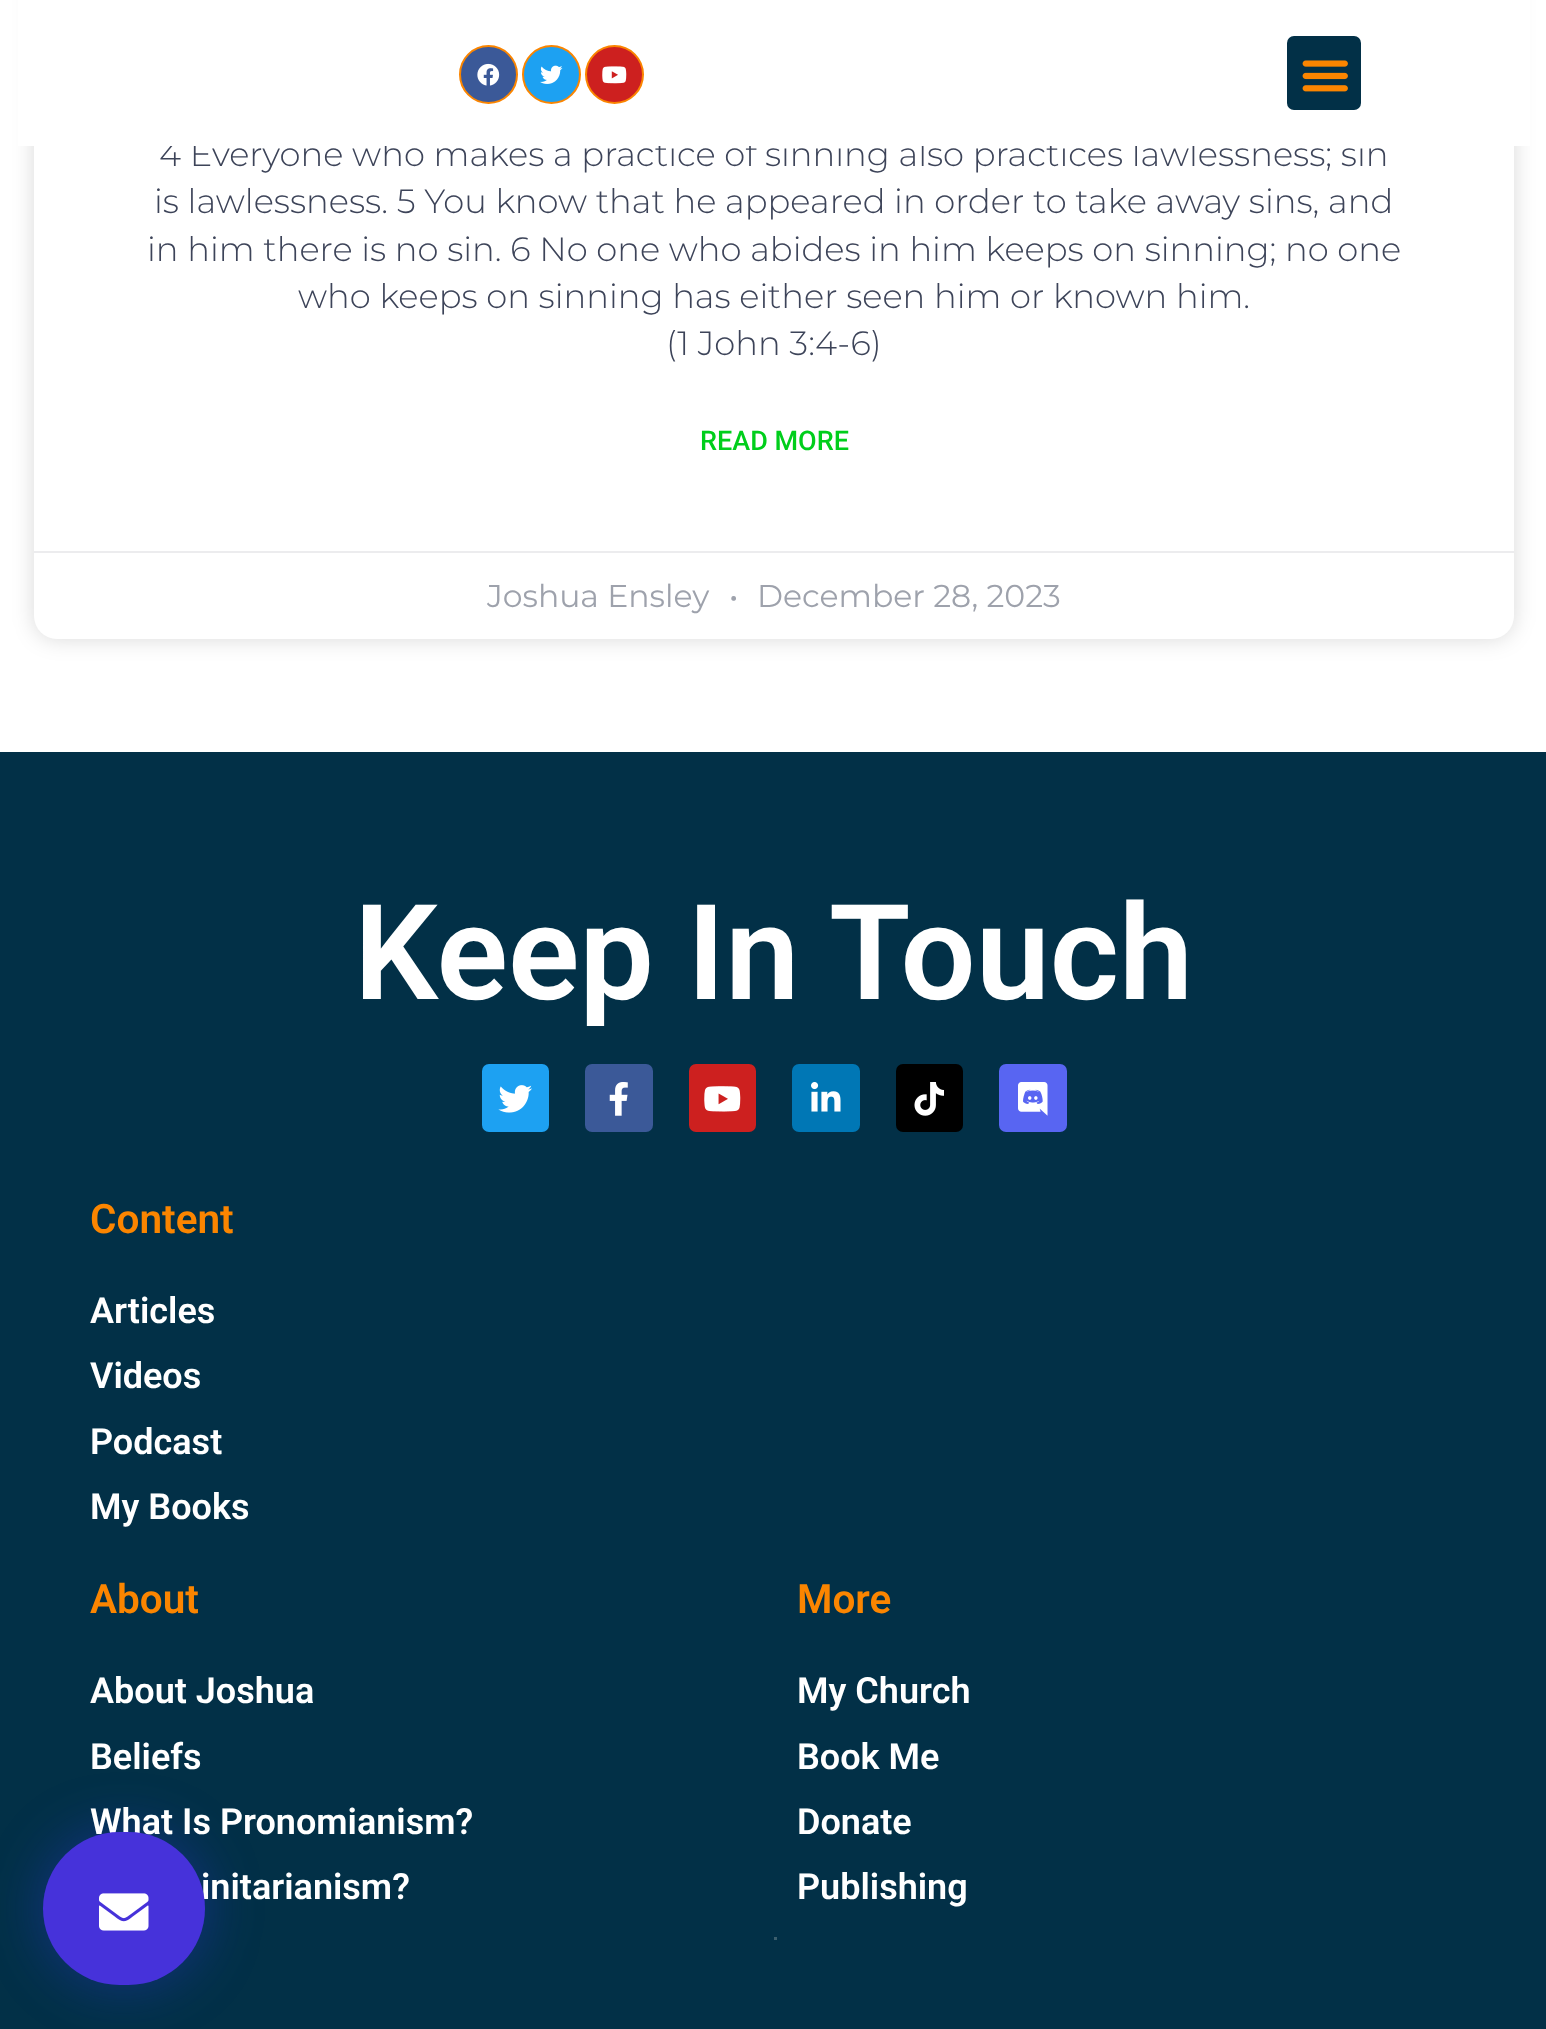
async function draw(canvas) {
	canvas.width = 1546;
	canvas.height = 2029;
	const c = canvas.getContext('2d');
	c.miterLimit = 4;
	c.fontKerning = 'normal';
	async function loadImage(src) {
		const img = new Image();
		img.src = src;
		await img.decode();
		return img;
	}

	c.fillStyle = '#fff';
	c.fillRect(0, 0, 1546, 2029);
	c.fillStyle = '#00000026';
	c.filter = 'blur(11px)';
	c.beginPath();
	c.roundRect(34, -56, 1480, 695, 23);
	c.fill();
	c.filter = 'none';
	c.fillStyle = '#fff';
	c.beginPath();
	c.roundRect(34, -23, 1480, 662, 23);
	c.fill();
	c.font = '300 33.75px Montserrat';
	c.fillStyle = '#3d4459';
	c.fillText('4 Everyone who makes a practice of sinning also practices lawlessness; sin', 159, 166);
	c.fillStyle = '#fff';
	c.fillRect(18, 0, 1512, 146);
	c.fillStyle = '#3b5998';
	c.beginPath();
	c.arc(488.5, 74.5, 28.5, 0, 2 * Math.PI);
	c.fill();
	c.strokeStyle = '#fb8500';
	c.lineWidth = 2;
	c.stroke();
	c.drawImage(await loadImage('img1.png'), 477, 63, 23, 23);
	c.fillStyle = '#1da1f2';
	c.beginPath();
	c.arc(551.5, 74.5, 28.5, 0, 2 * Math.PI);
	c.fill();
	c.stroke();
	c.drawImage(await loadImage('img2.png'), 540, 65, 23, 19);
	c.fillStyle = '#cd201f';
	c.beginPath();
	c.arc(614.5, 74.5, 28.5, 0, 2 * Math.PI);
	c.fill();
	c.stroke();
	c.drawImage(await loadImage('img3.png'), 602, 66, 25, 18);
	c.fillStyle = '#023047';
	c.beginPath();
	c.roundRect(1287, 36, 74, 74, 7);
	c.fill();
	c.drawImage(await loadImage('img4.png'), 1302, 60, 46, 32);
	c.fillStyle = '#3d4459';
	for (const [text, x, y] of [
		['is lawlessness. 5 You know that he appeared in order to take away sins, and', 154, 213],
		['in him there is no sin. 6 No one who abides in him keeps on sinning; no one', 147, 261],
		['who keeps on sinning has either seen him or known him.', 298, 308],
		['(1 John 3:4-6)', 666, 355],
	]) {
		c.fillText(text, x, y);
	}
	c.font = '500 27px Roboto';
	c.fillStyle = '#00ce1b';
	c.fillText('READ MORE', 700, 450);
	c.fillStyle = '#ececee';
	c.fillRect(34, 551, 1480, 2);
	c.font = '31.5px Montserrat';
	c.fillStyle = '#9ea2ac';
	for (const [text, x, y] of [
		['Joshua Ensley', 487, 607],
		['•', 729, 607],
		['December 28, 2023', 757, 607],
	]) {
		c.fillText(text, x, y);
	}
	c.fillStyle = '#023047';
	c.fillRect(0, 752, 1546, 1277);
	c.fillStyle = '#3538f059';
	c.filter = 'blur(28px)';
	c.beginPath();
	c.roundRect(43, 1832, 162, 153, 76.5);
	c.fill();
	c.filter = 'none';
	c.font = '600 36px Roboto';
	c.fillStyle = '#fff';
	c.fillText('What Is Pronomianism?', 90, 1834);
	c.fillText('initarianism?', 201, 1899);
	c.fillStyle = '#4632da';
	c.beginPath();
	c.roundRect(43, 1832, 162, 153, 76.5);
	c.fill();
	c.drawImage(await loadImage('img5.png'), 99, 1893, 50, 38);
	c.font = '600 132.75px Roboto';
	c.fillStyle = '#fff';
	c.fillText('Keep In Touch', 354, 999);
	c.fillStyle = '#1da1f2';
	c.beginPath();
	c.roundRect(482, 1064, 67, 68, 7);
	c.fill();
	c.drawImage(await loadImage('img6.png'), 498, 1085, 34, 28);
	c.fillStyle = '#3b5998';
	c.beginPath();
	c.roundRect(585, 1064, 68, 68, 7);
	c.fill();
	c.drawImage(await loadImage('img7.png'), 609, 1082, 19, 34);
	c.fillStyle = '#cd201f';
	c.beginPath();
	c.roundRect(689, 1064, 67, 68, 7);
	c.fill();
	c.drawImage(await loadImage('img8.png'), 704, 1086, 37, 26);
	c.fillStyle = '#0077b5';
	c.beginPath();
	c.roundRect(792, 1064, 68, 68, 7);
	c.fill();
	c.drawImage(await loadImage('img9.png'), 811, 1082, 30, 30);
	c.fillStyle = '#000';
	c.beginPath();
	c.roundRect(896, 1064, 67, 68, 7);
	c.fill();
	c.drawImage(await loadImage('img10.png'), 914, 1082, 30, 34);
	c.fillStyle = '#5865f2';
	c.beginPath();
	c.roundRect(999, 1064, 68, 68, 7);
	c.fill();
	c.drawImage(await loadImage('img11.png'), 1018, 1082, 30, 34);
	c.font = '600 40.5px Roboto';
	c.fillStyle = '#fb8500';
	c.fillText('Content', 90, 1233);
	c.font = '600 36px Roboto';
	c.fillStyle = '#fff';
	for (const [text, x, y] of [
		['Articles', 90, 1323],
		['Videos', 90, 1388],
		['Podcast', 90, 1454],
		['My Books', 90, 1519],
	]) {
		c.fillText(text, x, y);
	}
	c.font = '600 40.5px Roboto';
	c.fillStyle = '#fb8500';
	c.fillText('About', 90, 1613);
	c.font = '600 36px Roboto';
	c.fillStyle = '#fff';
	c.fillText('About Joshua', 90, 1703);
	c.fillText('Beliefs', 90, 1769);
	c.font = '600 40.5px Roboto';
	c.fillStyle = '#fb8500';
	c.fillText('More', 797, 1613);
	c.font = '600 36px Roboto';
	c.fillStyle = '#fff';
	for (const [text, x, y] of [
		['My Church', 797, 1703],
		['Book Me', 797, 1769],
		['Donate', 797, 1834],
		['Publishing', 797, 1899],
	]) {
		c.fillText(text, x, y);
	}
	c.fillStyle = '#3c5e6d';
	c.fillRect(774, 1937, 3, 3);
}

draw(document.querySelector('canvas'));
